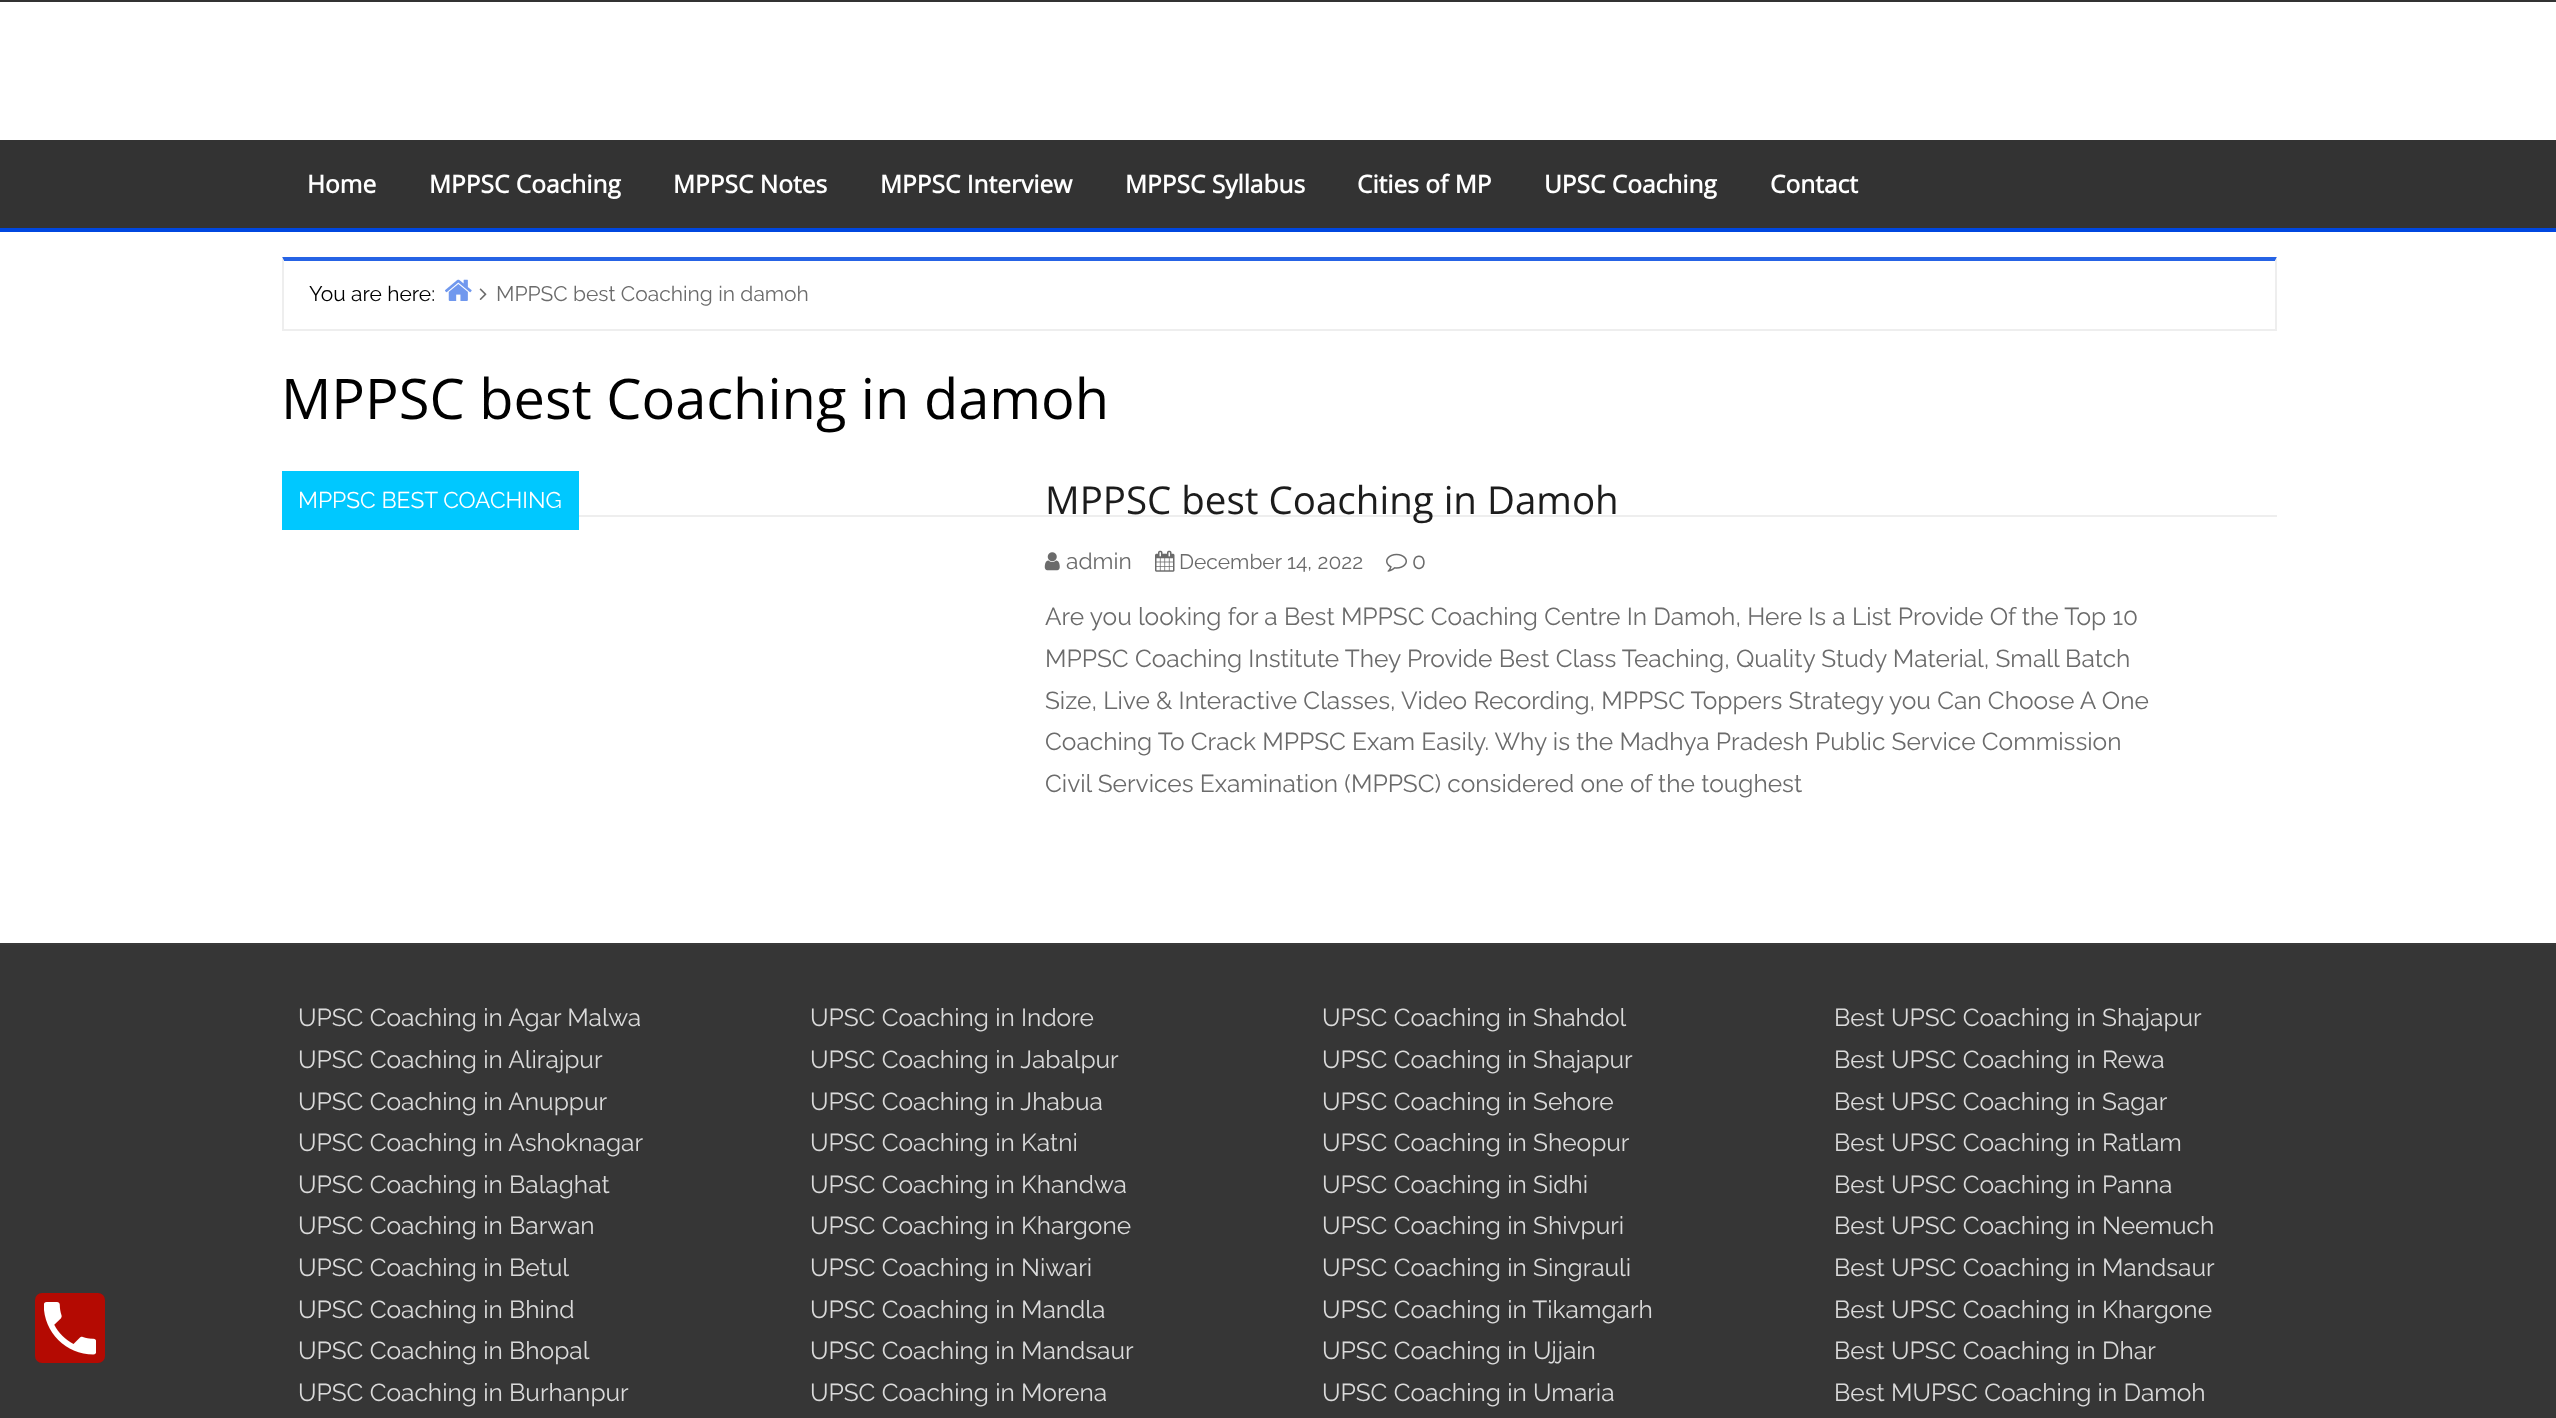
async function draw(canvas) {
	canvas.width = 2556;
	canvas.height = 1418;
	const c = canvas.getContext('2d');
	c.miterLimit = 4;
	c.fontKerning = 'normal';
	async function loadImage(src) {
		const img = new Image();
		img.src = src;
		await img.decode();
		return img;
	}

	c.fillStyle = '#fff';
	c.fillRect(0, 0, 2556, 1418);
	c.fillStyle = '#363636';
	c.fillRect(0, 945, 2556, 473);
	c.fillStyle = '#b40a02';
	c.beginPath();
	c.roundRect(35, 1293, 70, 70, 7);
	c.fill();
	c.drawImage(await loadImage('img1.png'), 44, 1302, 52, 53);
	for (const [x, y, w, h, color] of [
		[0, 0, 2556, 2, '#333'],
		[0, 140, 2556, 88, '#333'],
		[0, 228, 2556, 4, '#0047e0'],
	]) {
		c.fillStyle = color;
		c.fillRect(x, y, w, h);
	}
	c.font = 'bold 24.5px Open Sans';
	c.fillStyle = '#fff';
	for (const [text, x, y] of [
		['Home', 307, 193],
		['MPPSC Coaching', 429, 193],
		['MPPSC Notes', 673, 193],
		['MPPSC Interview', 880, 193],
		['MPPSC Syllabus', 1125, 193],
		['Cities of MP', 1357, 193],
		['UPSC Coaching', 1544, 193],
		['Contact', 1770, 193],
	]) {
		c.fillText(text, x, y);
	}
	c.fillStyle = '#2663e5';
	c.beginPath();
	c.moveTo(282, 257);
	c.lineTo(2277, 257);
	c.lineTo(2275, 261);
	c.lineTo(284, 261);
	c.closePath();
	c.fill();
	c.fillStyle = '#eee';
	c.beginPath();
	c.moveTo(2277, 257);
	c.lineTo(2277, 331);
	c.lineTo(2275, 329);
	c.lineTo(2275, 261);
	c.closePath();
	c.fill();
	c.fillRect(282, 329, 1995, 2);
	c.beginPath();
	c.moveTo(282, 331);
	c.lineTo(282, 257);
	c.lineTo(284, 261);
	c.lineTo(284, 329);
	c.closePath();
	c.fill();
	c.font = '100 21px Raleway';
	c.fillStyle = '#000';
	c.fillText('You are here:', 309, 301);
	c.drawImage(await loadImage('img2.png'), 445, 279, 27, 22);
	c.drawImage(await loadImage('img3.png'), 479, 288, 8, 12);
	c.fillStyle = '#6b6b6b';
	c.fillText('MPPSC best Coaching in damoh', 496, 301);
	c.font = '56px Open Sans';
	c.fillStyle = '#000';
	c.fillText('MPPSC best Coaching in damoh', 281, 419);
	c.fillStyle = '#eee';
	c.fillRect(579, 515, 1698, 2);
	c.fillStyle = '#00c8ff';
	c.fillRect(282, 471, 297, 59);
	c.font = '100 22.75px Raleway';
	c.fillStyle = '#fff';
	c.fillText('MPPSC BEST COACHING', 298, 508);
	c.font = '38.5px Open Sans';
	c.fillStyle = '#1c1c1c';
	c.fillText('MPPSC best Coaching in Damoh', 1045, 514);
	c.drawImage(await loadImage('img4.png'), 1044, 552, 16, 19);
	c.font = '100 22.75px Raleway';
	c.fillStyle = '#6b6b6b';
	c.fillText('admin', 1066, 569);
	c.drawImage(await loadImage('img5.png'), 1155, 550, 20, 22);
	c.font = '100 21px Raleway';
	c.fillText('December 14, 2022', 1179, 569);
	c.drawImage(await loadImage('img6.png'), 1386, 553, 21, 19);
	c.font = '100 22.75px Raleway';
	c.fillText('0', 1412, 569);
	c.font = '100 24.5px Raleway';
	for (const [text, x, y] of [
		['Are you looking for a Best MPPSC Coaching Centre In Damoh, Here Is a List Provide Of the Top 10', 1045, 625],
		['MPPSC Coaching Institute They Provide Best Class Teaching, Quality Study Material, Small Batch', 1045, 667],
		['Size, Live & Interactive Classes, Video Recording, MPPSC Toppers Strategy you Can Choose A One', 1045, 709],
		['Coaching To Crack MPPSC Exam Easily. Why is the Madhya Pradesh Public Service Commission', 1045, 750],
		['Civil Services Examination (MPPSC) considered one of the toughest', 1045, 792],
	]) {
		c.fillText(text, x, y);
	}
	c.fillStyle = '#3a3a3a';
	c.fillRect(0, 943, 2556, 2);
	c.fillStyle = '#dadada';
	for (const [text, x, y] of [
		['UPSC Coaching in Agar Malwa', 298, 1026],
		['UPSC Coaching in Alirajpur', 298, 1068],
		['UPSC Coaching in Anuppur', 298, 1110],
		['UPSC Coaching in Ashoknagar', 298, 1151],
		['UPSC Coaching in Balaghat', 298, 1193],
		['UPSC Coaching in Barwan', 298, 1234],
		['UPSC Coaching in Betul', 298, 1276],
		['UPSC Coaching in Bhind', 298, 1318],
		['UPSC Coaching in Bhopal', 298, 1359],
		['UPSC Coaching in Burhanpur', 298, 1401],
		['UPSC Coaching in Indore', 810, 1026],
		['UPSC Coaching in Jabalpur', 810, 1068],
		['UPSC Coaching in Jhabua', 810, 1110],
		['UPSC Coaching in Katni', 810, 1151],
		['UPSC Coaching in Khandwa', 810, 1193],
		['UPSC Coaching in Khargone', 810, 1234],
		['UPSC Coaching in Niwari', 810, 1276],
		['UPSC Coaching in Mandla', 810, 1318],
		['UPSC Coaching in Mandsaur', 810, 1359],
		['UPSC Coaching in Morena', 810, 1401],
		['UPSC Coaching in Shahdol', 1322, 1026],
		['UPSC Coaching in Shajapur', 1322, 1068],
		['UPSC Coaching in Sehore', 1322, 1110],
		['UPSC Coaching in Sheopur', 1322, 1151],
		['UPSC Coaching in Sidhi', 1322, 1193],
		['UPSC Coaching in Shivpuri', 1322, 1234],
		['UPSC Coaching in Singrauli', 1322, 1276],
		['UPSC Coaching in Tikamgarh', 1322, 1318],
		['UPSC Coaching in Ujjain', 1322, 1359],
		['UPSC Coaching in Umaria', 1322, 1401],
		['Best UPSC Coaching in Shajapur', 1834, 1026],
		['Best UPSC Coaching in Rewa', 1834, 1068],
		['Best UPSC Coaching in Sagar', 1834, 1110],
		['Best UPSC Coaching in Ratlam', 1834, 1151],
		['Best UPSC Coaching in Panna', 1834, 1193],
		['Best UPSC Coaching in Neemuch', 1834, 1234],
		['Best UPSC Coaching in Mandsaur', 1834, 1276],
		['Best UPSC Coaching in Khargone', 1834, 1318],
		['Best UPSC Coaching in Dhar', 1834, 1359],
		['Best MUPSC Coaching in Damoh', 1834, 1401],
	]) {
		c.fillText(text, x, y);
	}
}

draw(document.querySelector('canvas'));
